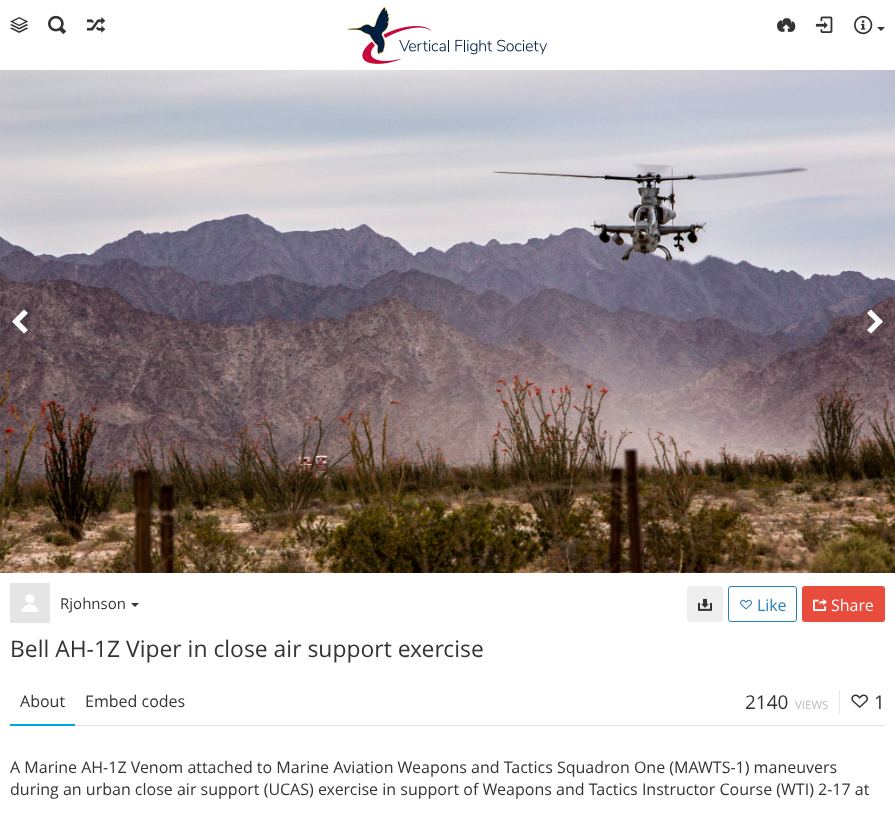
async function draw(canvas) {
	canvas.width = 895;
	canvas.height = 813;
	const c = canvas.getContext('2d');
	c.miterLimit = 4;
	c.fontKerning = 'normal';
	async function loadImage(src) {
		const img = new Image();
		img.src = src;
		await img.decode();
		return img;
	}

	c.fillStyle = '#fff';
	c.fillRect(0, 0, 895, 813);
	c.drawImage(await loadImage('img1.png'), 10, 17, 19, 16);
	c.drawImage(await loadImage('img2.png'), 48, 15, 19, 20);
	c.drawImage(await loadImage('img3.png'), 87, 17, 19, 16);
	c.drawImage(await loadImage('img4.png'), 347, 7, 200, 57);
	c.drawImage(await loadImage('img5.png'), 777, 18, 19, 14);
	c.drawImage(await loadImage('img6.png'), 815, 16, 18, 17);
	c.drawImage(await loadImage('img7.png'), 854, 15, 19, 20);
	c.fillStyle = '#333';
	c.beginPath();
	c.moveTo(877, 27);
	c.lineTo(885, 27);
	c.lineTo(881, 31);
	c.closePath();
	c.fill();
	c.drawImage(await loadImage('img8.png'), 0, 70, 895, 503);
	c.fillStyle = '#fff';
	c.beginPath();
	c.moveTo(24, 309.5);
	c.lineTo(12, 321.5);
	c.lineTo(24, 333.5);
	c.lineTo(28, 330);
	c.lineTo(19.5, 321.5);
	c.lineTo(28, 313);
	c.closePath();
	c.fill();
	c.beginPath();
	c.moveTo(871, 309.5);
	c.lineTo(883, 321.5);
	c.lineTo(871, 333.5);
	c.lineTo(867, 330);
	c.lineTo(875.5, 321.5);
	c.lineTo(867, 313);
	c.closePath();
	c.fill();
	c.fillStyle = '#e5e5e5';
	c.fillRect(10, 583, 40, 40);
	c.drawImage(await loadImage('img9.png'), 21, 594, 18, 18);
	c.font = '15px Open Sans';
	c.fillStyle = '#333';
	c.fillText('Rjohnson', 60, 609);
	c.beginPath();
	c.moveTo(131, 603);
	c.lineTo(139, 603);
	c.lineTo(135, 607);
	c.closePath();
	c.fill();
	c.fillStyle = '#eee';
	c.beginPath();
	c.roundRect(687, 586, 36, 36, 3);
	c.fill();
	c.drawImage(await loadImage('img10.png'), 698, 598, 14, 13);
	c.beginPath();
	c.roundRect(728.5, 586.5, 68, 35, 2.5);
	c.strokeStyle = '#2a80b9';
	c.stroke();
	c.drawImage(await loadImage('img11.png'), 740, 599, 12, 11);
	c.font = '16px Open Sans';
	c.fillStyle = '#2a80b9';
	c.fillText('Like', 757, 611);
	c.fillStyle = '#e84c3d';
	c.beginPath();
	c.roundRect(802, 586, 83, 36, 3);
	c.fill();
	c.drawImage(await loadImage('img12.png'), 813, 598, 14, 13);
	c.fillStyle = '#fff';
	c.fillText('Share', 831, 611);
	c.font = '22.9px Open Sans';
	c.fillStyle = '#333';
	c.fillText('Bell AH-1Z Viper in close air support exercise', 10, 657);
	c.fillStyle = '#e5e5e5';
	c.fillRect(75, 725, 810, 1);
	c.fillStyle = '#00a7da';
	c.fillRect(10, 724, 65, 2);
	c.font = '16px Open Sans';
	c.fillStyle = '#333';
	c.fillText('About', 20, 707);
	c.fillText('Embed codes', 85, 707);
	c.font = '19px Open Sans';
	c.fillText('2140', 745, 709);
	c.font = '11.5px Open Sans';
	c.fillStyle = '#bbb';
	c.fillText('VIEWS', 795, 709);
	c.fillStyle = '#e5e5e5';
	c.fillRect(839, 690, 1, 24);
	c.drawImage(await loadImage('img13.png'), 851, 694, 17, 14);
	c.font = '19px Open Sans';
	c.fillStyle = '#333';
	c.fillText('1', 874, 709);
	c.font = '16px Open Sans';
	c.fillText('A Marine AH-1Z Venom attached to Marine Aviation Weapons and Tactics Squadron One (MAWTS-1) maneuvers', 10, 773);
	c.fillText('during an urban close air support (UCAS) exercise in support of Weapons and Tactics Instructor Course (WTI) 2-17 at', 10, 795);
}

draw(document.querySelector('canvas'));
